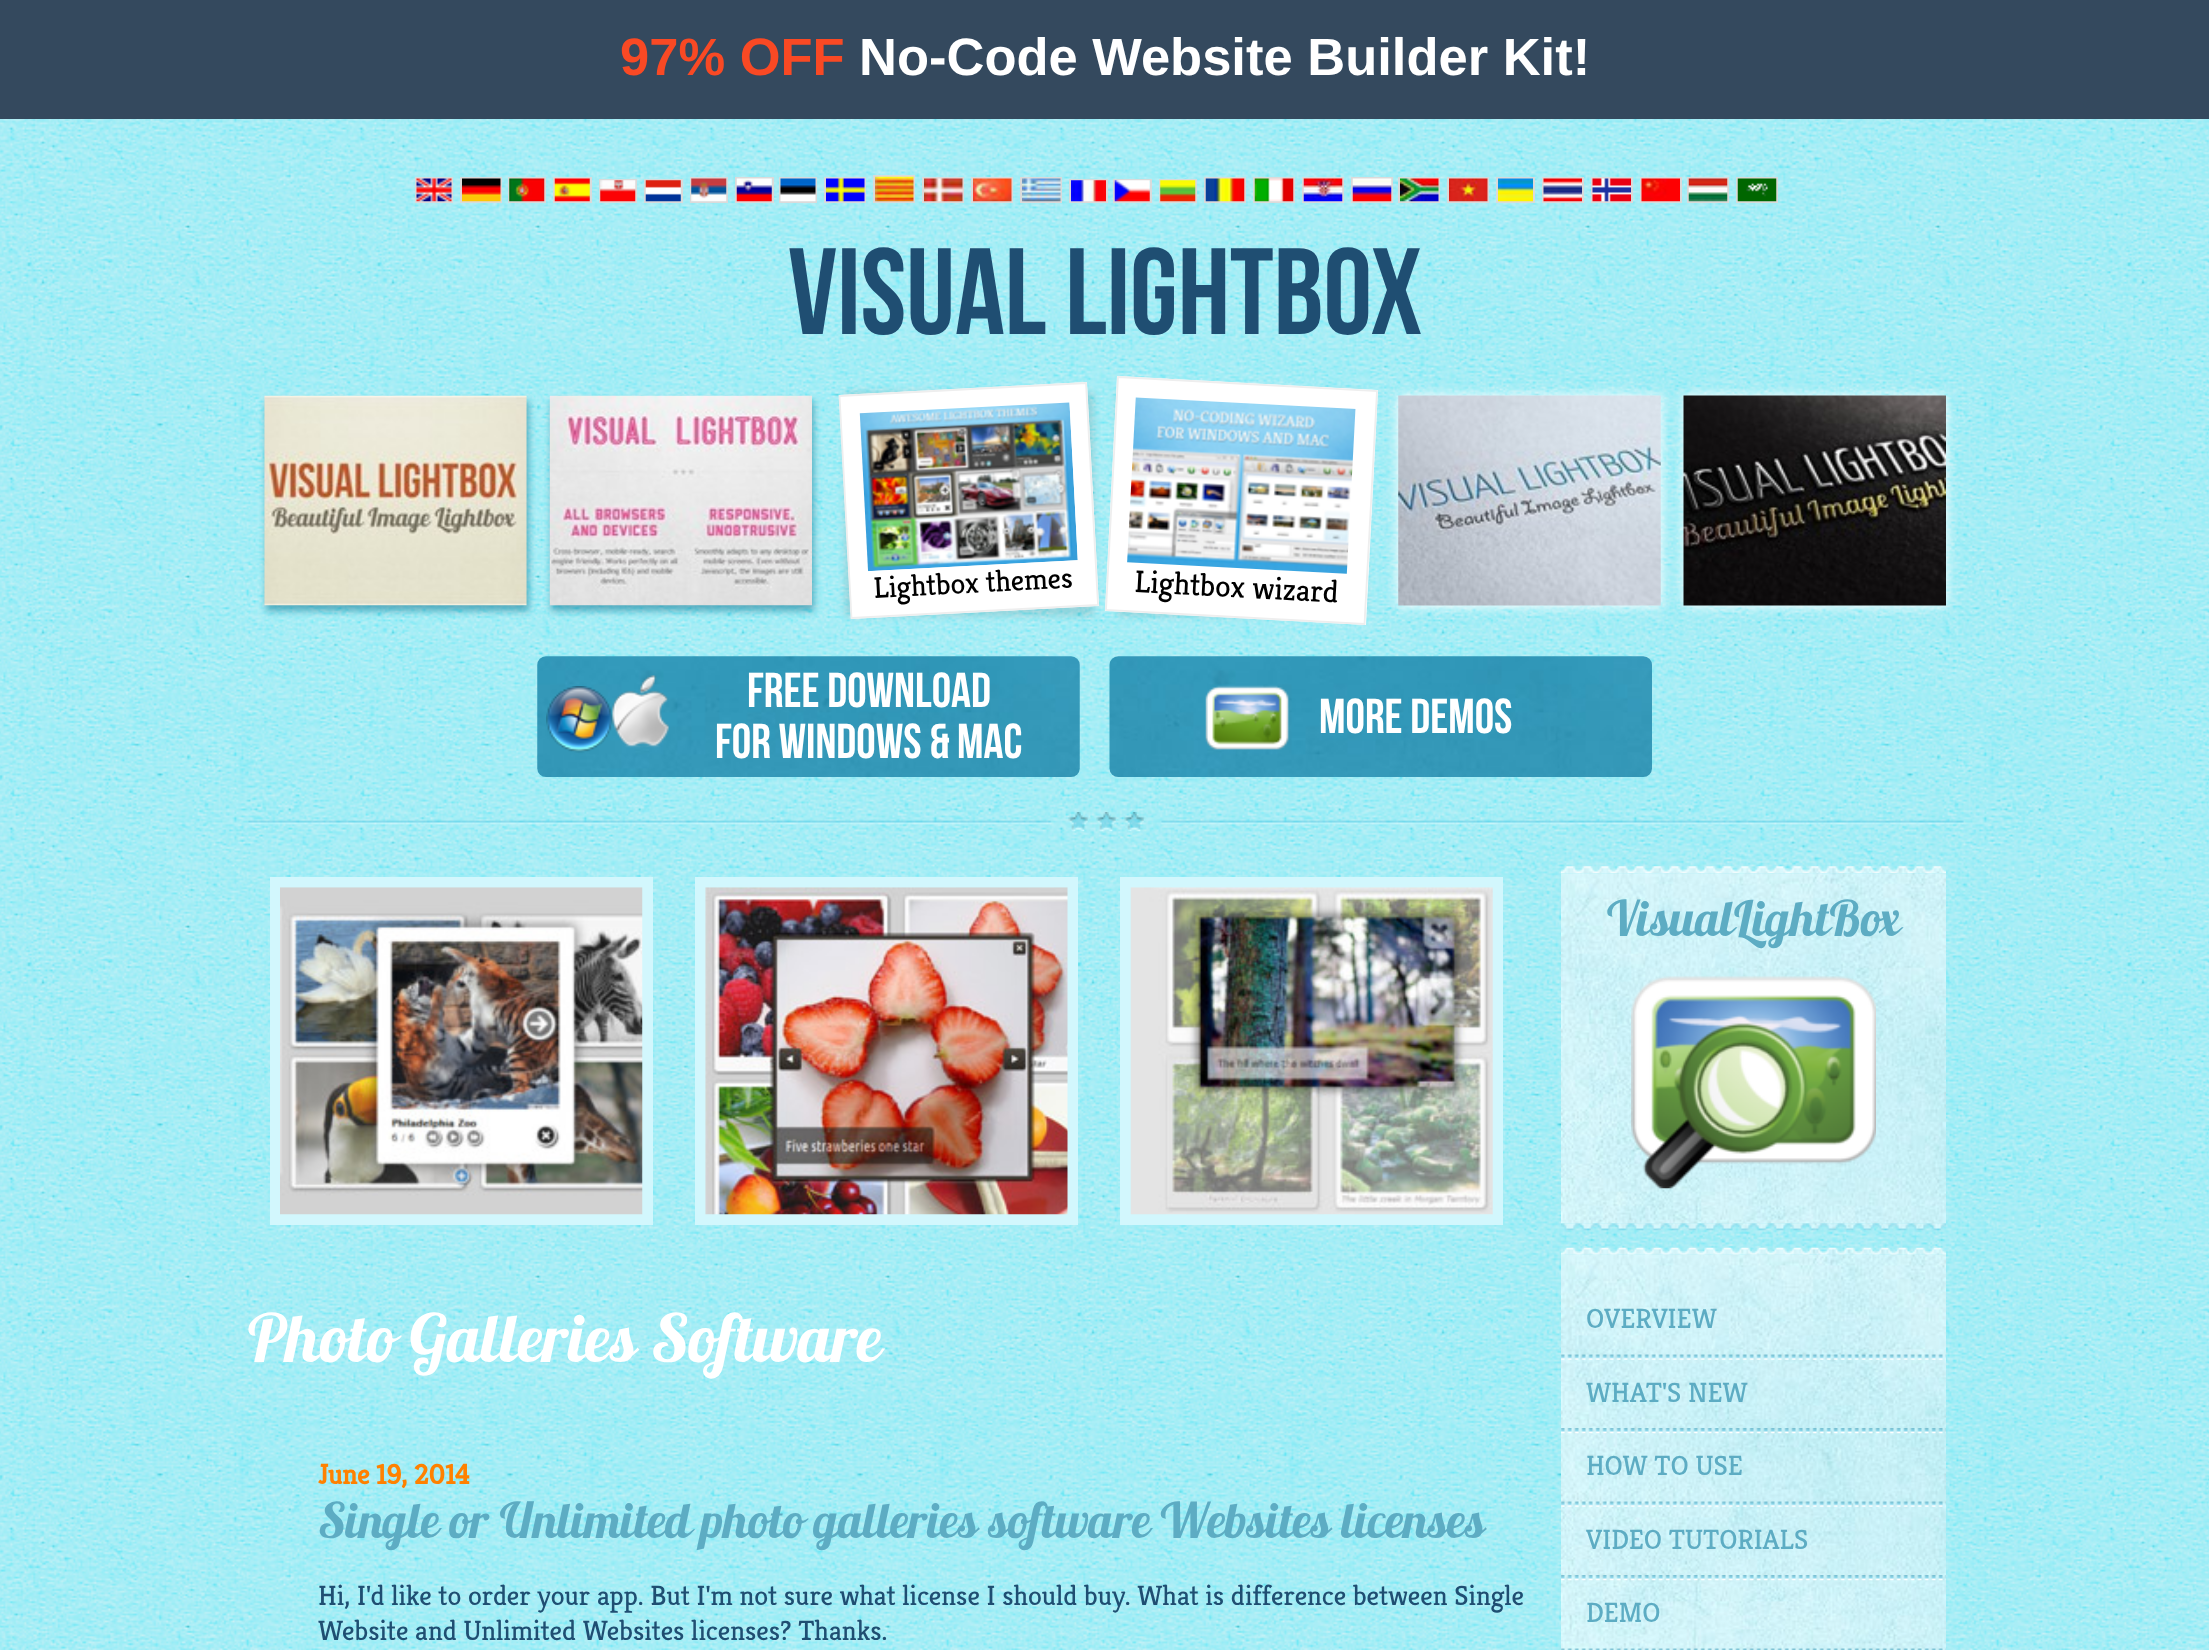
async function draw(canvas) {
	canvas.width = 2209;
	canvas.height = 1650;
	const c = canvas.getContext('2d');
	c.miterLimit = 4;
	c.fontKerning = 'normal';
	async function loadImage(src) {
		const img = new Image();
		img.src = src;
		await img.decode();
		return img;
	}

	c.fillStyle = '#fff';
	c.fillRect(0, 0, 2209, 1650);
	c.drawImage(await loadImage('img1.png'), 0, 119, 2209, 1531);
	c.fillStyle = '#34495e';
	c.fillRect(0, 0, 2209, 119);
	c.font = 'bold 52.5px Liberation Sans';
	c.fillStyle = '#f94924';
	c.fillText('97% OFF', 620, 75);
	c.fillStyle = '#fff';
	c.fillText('No-Code Website Builder Kit!', 859, 75);
	c.strokeStyle = '#dadada';
	c.lineWidth = 2;
	c.strokeRect(874, 176, 40, 26);
	c.strokeRect(416, 178, 36, 24);
	c.strokeRect(461, 178, 40, 24);
	c.strokeRect(509, 178, 36, 24);
	c.strokeRect(554, 178, 37, 24);
	c.strokeRect(691, 178, 36, 24);
	c.strokeRect(736, 178, 37, 24);
	c.strokeRect(780, 178, 36, 24);
	c.strokeRect(825, 178, 40, 24);
	c.drawImage(await loadImage('img2.png'), 875, 176, 39, 26);
	c.strokeRect(923, 178, 40, 24);
	c.strokeRect(972, 178, 40, 24);
	c.strokeRect(1021, 178, 40, 24);
	c.strokeRect(1205, 178, 40, 24);
	c.strokeRect(1254, 178, 40, 24);
	c.strokeRect(1303, 178, 40, 24);
	c.strokeRect(1352, 178, 40, 24);
	c.strokeRect(1399, 178, 40, 24);
	c.strokeRect(1448, 178, 40, 24);
	c.strokeRect(1497, 178, 37, 24);
	c.strokeRect(1543, 178, 40, 24);
	c.strokeRect(1592, 178, 40, 24);
	c.strokeRect(1641, 178, 40, 24);
	c.strokeRect(1688, 178, 40, 24);
	c.strokeRect(1737, 178, 40, 24);
	c.drawImage(await loadImage('img3.png'), 416, 178, 36, 24);
	c.drawImage(await loadImage('img4.png'), 462, 178, 39, 24);
	c.drawImage(await loadImage('img5.png'), 509, 178, 36, 24);
	c.drawImage(await loadImage('img6.png'), 554, 178, 36, 24);
	c.strokeRect(600, 180, 36, 22);
	c.strokeRect(645, 180, 37, 22);
	c.drawImage(await loadImage('img7.png'), 691, 178, 36, 24);
	c.drawImage(await loadImage('img8.png'), 736, 178, 36, 24);
	c.drawImage(await loadImage('img9.png'), 780, 178, 36, 24);
	c.drawImage(await loadImage('img10.png'), 826, 178, 39, 24);
	c.drawImage(await loadImage('img11.png'), 924, 178, 39, 24);
	c.drawImage(await loadImage('img12.png'), 973, 178, 39, 24);
	c.drawImage(await loadImage('img13.png'), 1022, 178, 39, 24);
	c.strokeRect(1070, 180, 37, 22);
	c.strokeRect(1114, 180, 37, 22);
	c.strokeRect(1160, 180, 36, 22);
	c.drawImage(await loadImage('img14.png'), 1205, 178, 40, 24);
	c.drawImage(await loadImage('img15.png'), 1254, 178, 40, 24);
	c.drawImage(await loadImage('img16.png'), 1303, 178, 40, 24);
	c.drawImage(await loadImage('img17.png'), 1352, 178, 40, 24);
	c.drawImage(await loadImage('img18.png'), 1400, 178, 39, 24);
	c.drawImage(await loadImage('img19.png'), 1449, 178, 39, 24);
	c.drawImage(await loadImage('img20.png'), 1498, 178, 35, 24);
	c.drawImage(await loadImage('img21.png'), 1543, 178, 39, 24);
	c.drawImage(await loadImage('img22.png'), 1592, 178, 39, 24);
	c.drawImage(await loadImage('img23.png'), 1641, 178, 39, 24);
	c.drawImage(await loadImage('img24.png'), 1688, 178, 40, 24);
	c.drawImage(await loadImage('img25.png'), 1737, 178, 40, 24);
	c.drawImage(await loadImage('img26.png'), 600, 180, 36, 22);
	c.drawImage(await loadImage('img27.png'), 645, 180, 36, 22);
	c.drawImage(await loadImage('img28.png'), 1071, 180, 35, 22);
	c.drawImage(await loadImage('img29.png'), 1114, 180, 36, 22);
	c.drawImage(await loadImage('img30.png'), 1160, 180, 36, 22);
	c.font = '122.5px Bebas Neue';
	c.fillStyle = '#1f4e72';
	c.fillText('VISUAL LIGHTBOX', 788, 334);
	c.fillStyle = '#006b8a80';
	c.filter = 'blur(3.5px)';
	c.beginPath();
	c.rect(266, 401, 263, 210);
	c.fill();
	c.filter = 'none';
	c.drawImage(await loadImage('img31.png'), 264, 395, 263, 211);
	c.filter = 'blur(3.5px)';
	c.beginPath();
	c.rect(551, 401, 263, 210);
	c.fill();
	c.filter = 'none';
	c.drawImage(await loadImage('img32.png'), 549, 395, 263, 211);
	c.fillStyle = '#0000001a';
	c.filter = 'blur(3.5px)';
	c.beginPath();
	c.rect(845, 392, 249, 224);
	c.fill();
	c.filter = 'none';
	c.fillStyle = '#fff';
	c.beginPath();
	c.moveTo(839, 395);
	c.lineTo(1087, 382);
	c.lineTo(1099, 606);
	c.lineTo(851, 619);
	c.closePath();
	c.fill();
	c.beginPath();
	c.moveTo(839.5, 396);
	c.lineTo(1086, 383);
	c.lineTo(1098, 605);
	c.lineTo(851.5, 618);
	c.closePath();
	c.strokeStyle = '#eee';
	c.lineWidth = 1.8;
	c.stroke();
	c.drawImage(await loadImage('img33.png'), 859, 402, 219, 170);
	c.font = '29.75px Kreon';
	c.fillStyle = '#000';
	c.save();
	c.translate(874, 598);
	c.rotate(-3 * Math.PI / 180);
	c.fillText('Lightbox themes', 0, 0);
	c.restore();
	c.fillStyle = '#0000001a';
	c.filter = 'blur(3.5px)';
	c.beginPath();
	c.rect(1117, 392, 248, 224);
	c.fill();
	c.filter = 'none';
	c.fillStyle = '#fff';
	c.beginPath();
	c.moveTo(1117, 376);
	c.lineTo(1378, 390);
	c.lineTo(1366, 625);
	c.lineTo(1105, 611);
	c.closePath();
	c.fill();
	c.beginPath();
	c.moveTo(1118, 377);
	c.lineTo(1377, 391);
	c.lineTo(1364.5, 624);
	c.lineTo(1106, 610);
	c.closePath();
	c.stroke();
	c.drawImage(await loadImage('img34.png'), 1127, 397, 229, 177);
	c.font = '31.25px Kreon';
	c.fillStyle = '#000';
	c.save();
	c.translate(1134, 592);
	c.rotate(3 * Math.PI / 180);
	c.fillText('Lightbox wizard', 0, 0);
	c.restore();
	c.fillStyle = '#fff';
	c.filter = 'blur(6px)';
	c.beginPath();
	c.rect(1398, 396, 263, 210);
	c.fill();
	c.filter = 'none';
	c.drawImage(await loadImage('img35.png'), 1398, 395, 263, 211);
	c.filter = 'blur(6px)';
	c.beginPath();
	c.rect(1684, 396, 262, 210);
	c.fill();
	c.filter = 'none';
	c.drawImage(await loadImage('img36.png'), 1683, 395, 263, 211);
	c.drawImage(await loadImage('img37.png'), 537, 656, 543, 121);
	c.drawImage(await loadImage('img38.png'), 546, 686, 67, 67);
	c.drawImage(await loadImage('img39.png'), 612, 675, 57, 73);
	c.font = '49px Bebas Neue';
	c.fillText('Free Download', 747, 707);
	c.fillText('for Windows & Mac', 715, 758);
	c.drawImage(await loadImage('img40.png'), 1109, 656, 543, 121);
	c.drawImage(await loadImage('img41.png'), 1205, 685, 84, 65);
	c.fillText('More Demos', 1319, 733);
	c.drawImage(await loadImage('img42.png'), 248, 812, 1716, 20);
	c.strokeStyle = '#d2f7fd';
	c.lineWidth = 11;
	c.strokeRect(275.5, 882.5, 372, 337);
	c.drawImage(await loadImage('img43.png'), 280, 887, 363, 328);
	c.strokeRect(700.5, 882.5, 372, 337);
	c.drawImage(await loadImage('img44.png'), 705, 887, 363, 328);
	c.strokeRect(1125.5, 882.5, 372, 337);
	c.drawImage(await loadImage('img45.png'), 1130, 887, 363, 328);
	c.font = '66.5px "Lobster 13"';
	c.fillText('Photo Galleries Software', 248, 1362);
	c.font = 'bold 28px Kreon';
	c.fillStyle = '#ff8100';
	c.fillText('June 19, 2014', 318, 1484);
	c.font = '49px "Lobster 13"';
	c.fillStyle = '#5dacc3';
	c.fillText('Single or Unlimited photo galleries software Websites licenses', 318, 1538);
	c.font = '28px Kreon';
	c.fillStyle = '#1f4e72';
	c.fillText('Hi, I\'d like to order your app. But I\'m not sure what license I should buy. What is difference between Single', 318, 1605);
	c.fillText('Website and Unlimited Websites licenses? Thanks.', 318, 1640);
	c.drawImage(await loadImage('img46.png'), 1561, 866, 385, 8);
	c.drawImage(await loadImage('img47.png'), 1561, 1223, 385, 8);
	c.drawImage(await loadImage('img48.png'), 1561, 873, 385, 351);
	c.font = '49px "Lobster 13"';
	c.fillStyle = '#5dacc3';
	c.fillText('VisualLightBox', 1607, 936);
	c.drawImage(await loadImage('img49.png'), 1631, 976, 245, 213);
	c.drawImage(await loadImage('img50.png'), 1561, 1247, 385, 8);
	c.drawImage(await loadImage('img51.png'), 1561, 1254, 385, 396);
	c.font = '28px Kreon';
	c.fillText('OVERVIEW', 1586, 1328);
	c.drawImage(await loadImage('img52.png'), 1561, 1354, 385, 6);
	c.fillText('WHAT\'S NEW', 1586, 1402);
	c.drawImage(await loadImage('img53.png'), 1561, 1428, 385, 6);
	c.fillText('HOW TO USE', 1586, 1475);
	c.drawImage(await loadImage('img54.png'), 1561, 1501, 385, 6);
	c.fillText('VIDEO TUTORIALS', 1586, 1549);
	c.drawImage(await loadImage('img55.png'), 1561, 1575, 385, 6);
	c.fillText('DEMO', 1586, 1622);
	c.drawImage(await loadImage('img56.png'), 1561, 1648, 385, 2);
}

draw(document.querySelector('canvas'));
